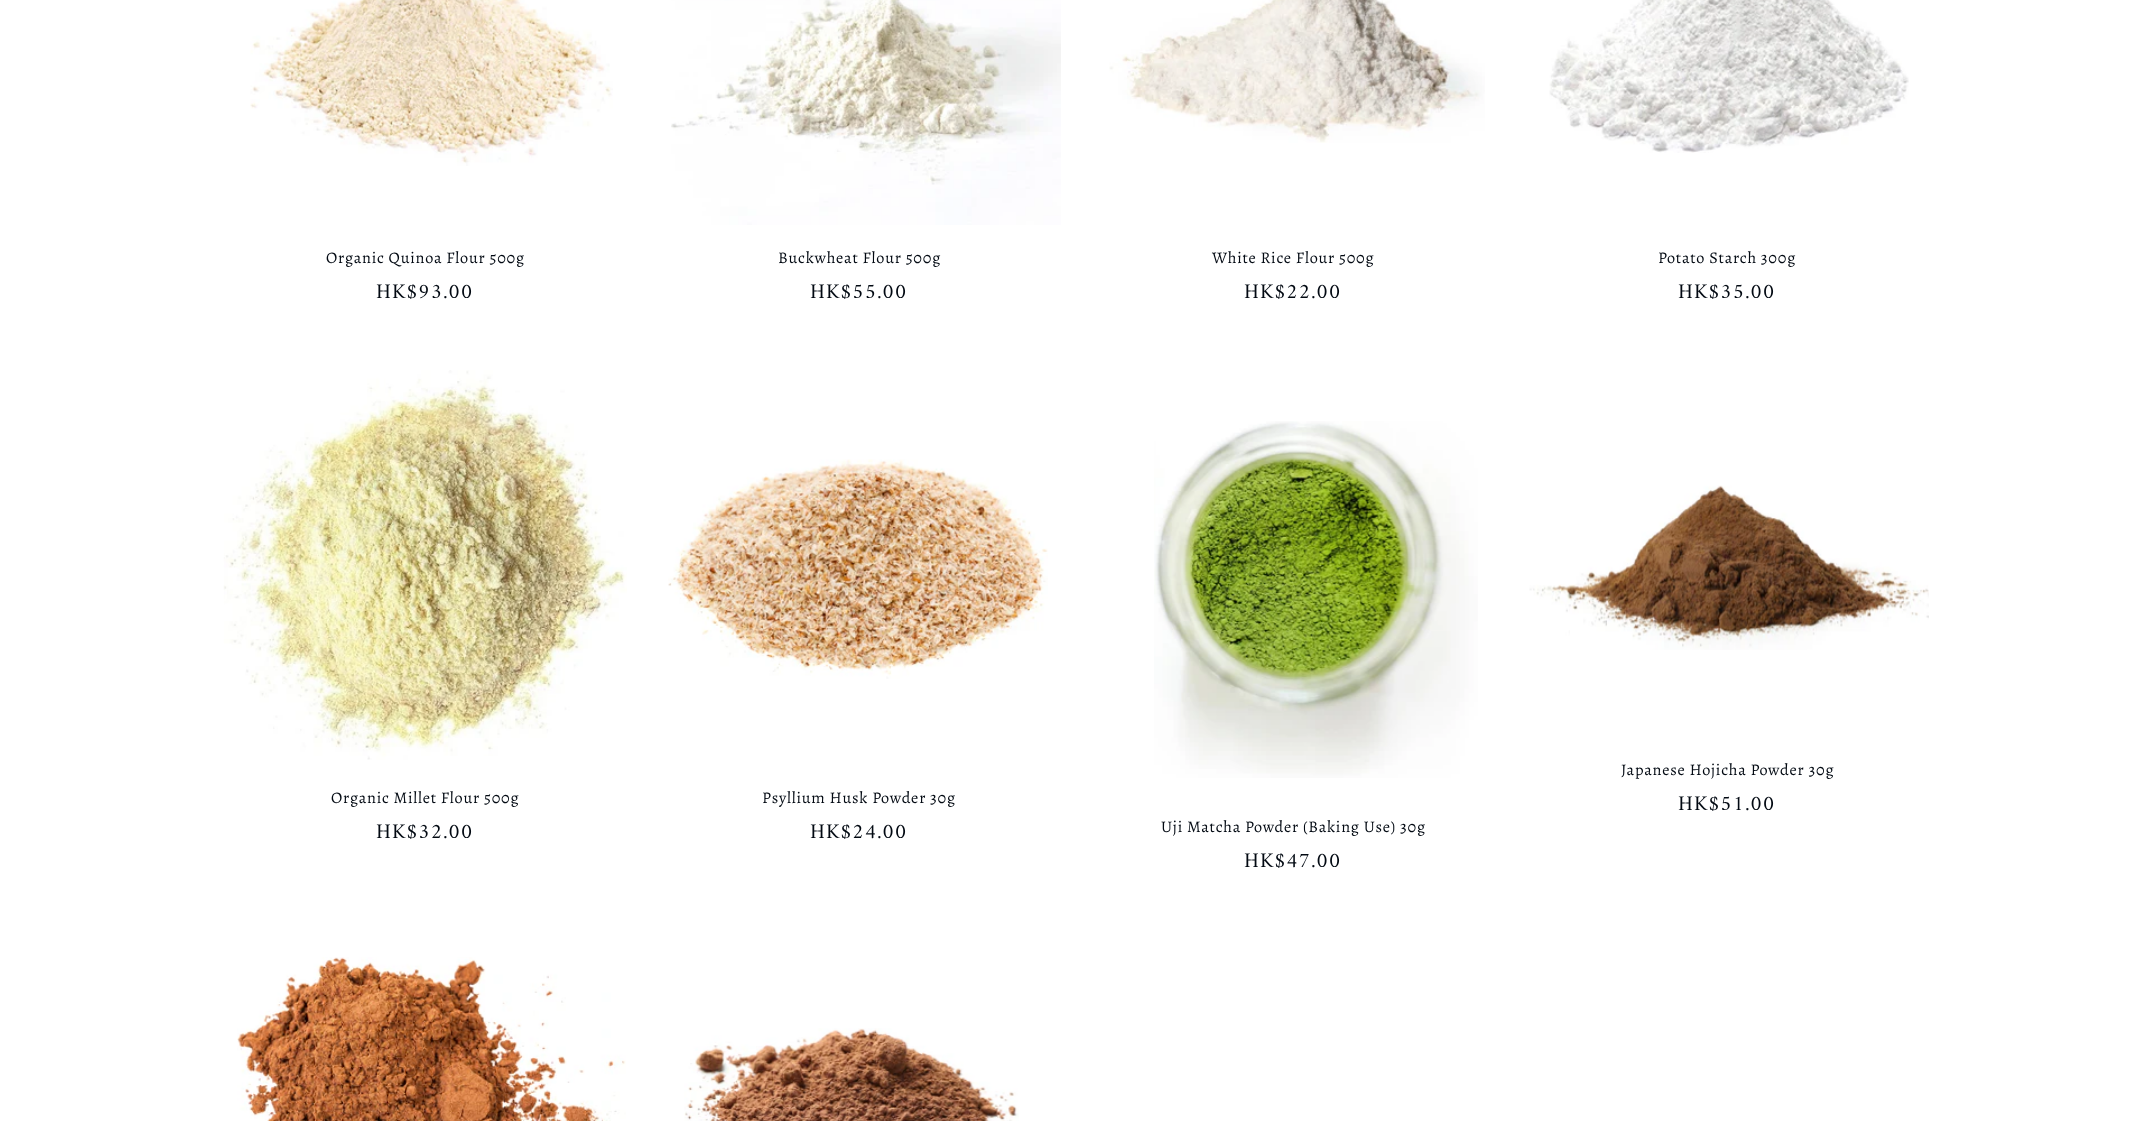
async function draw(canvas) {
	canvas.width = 2152;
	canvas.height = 1121;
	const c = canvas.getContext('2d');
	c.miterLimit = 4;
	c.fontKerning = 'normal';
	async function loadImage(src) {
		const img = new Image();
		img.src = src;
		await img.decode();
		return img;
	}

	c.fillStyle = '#fff';
	c.fillRect(0, 0, 2152, 1121);
	c.drawImage(await loadImage('img1.png'), 250, 0, 363, 166);
	c.letterSpacing = '0.75px';
	c.font = '16.25px Alegreya';
	c.fillStyle = '#020912';
	c.fillText('Organic Quinoa Flour 500g', 326, 263);
	c.letterSpacing = '1.25px';
	c.font = '21px Amiri';
	c.fillText('HK$93.00', 376, 298);
	c.drawImage(await loadImage('img2.png'), 671, 0, 390, 225);
	c.letterSpacing = '0.75px';
	c.font = '16.25px Alegreya';
	c.fillText('Buckwheat Flour 500g', 778, 263);
	c.letterSpacing = '1.25px';
	c.font = '21px Amiri';
	c.fillText('HK$55.00', 810, 298);
	c.drawImage(await loadImage('img3.png'), 1109, 0, 376, 143);
	c.letterSpacing = '0.75px';
	c.font = '16.25px Alegreya';
	c.fillText('White Rice Flour 500g', 1212, 263);
	c.letterSpacing = '1.25px';
	c.font = '21px Amiri';
	c.fillText('HK$22.00', 1244, 298);
	c.drawImage(await loadImage('img4.png'), 1549, 0, 360, 153);
	c.letterSpacing = '0.75px';
	c.font = '16.25px Alegreya';
	c.fillText('Potato Starch 300g', 1658, 263);
	c.letterSpacing = '1.25px';
	c.font = '21px Amiri';
	c.fillText('HK$35.00', 1678, 298);
	c.drawImage(await loadImage('img5.png'), 223, 370, 404, 390);
	c.letterSpacing = '0.75px';
	c.font = '16.25px Alegreya';
	c.fillText('Organic Millet Flour 500g', 331, 803);
	c.letterSpacing = '1.25px';
	c.font = '21px Amiri';
	c.fillText('HK$32.00', 376, 838);
	c.drawImage(await loadImage('img6.png'), 668, 459, 380, 220);
	c.letterSpacing = '0.75px';
	c.font = '16.25px Alegreya';
	c.fillText('Psyllium Husk Powder 30g', 762, 803);
	c.letterSpacing = '1.25px';
	c.font = '21px Amiri';
	c.fillText('HK$24.00', 810, 838);
	c.drawImage(await loadImage('img7.png'), 1154, 421, 324, 357);
	c.letterSpacing = '0.75px';
	c.font = '16.25px Alegreya';
	c.fillText('Uji Matcha Powder (Baking Use) 30g', 1161, 832);
	c.letterSpacing = '1.25px';
	c.font = '21px Amiri';
	c.fillText('HK$47.00', 1244, 867);
	c.drawImage(await loadImage('img8.png'), 1529, 485, 400, 165);
	c.letterSpacing = '0.75px';
	c.font = '16.25px Alegreya';
	c.fillText('Japanese Hojicha Powder 30g', 1621, 775);
	c.letterSpacing = '1.25px';
	c.font = '21px Amiri';
	c.fillText('HK$51.00', 1678, 810);
	c.drawImage(await loadImage('img9.png'), 237, 957, 389, 164);
	c.drawImage(await loadImage('img10.png'), 684, 1028, 335, 93);
}

draw(document.querySelector('canvas'));
